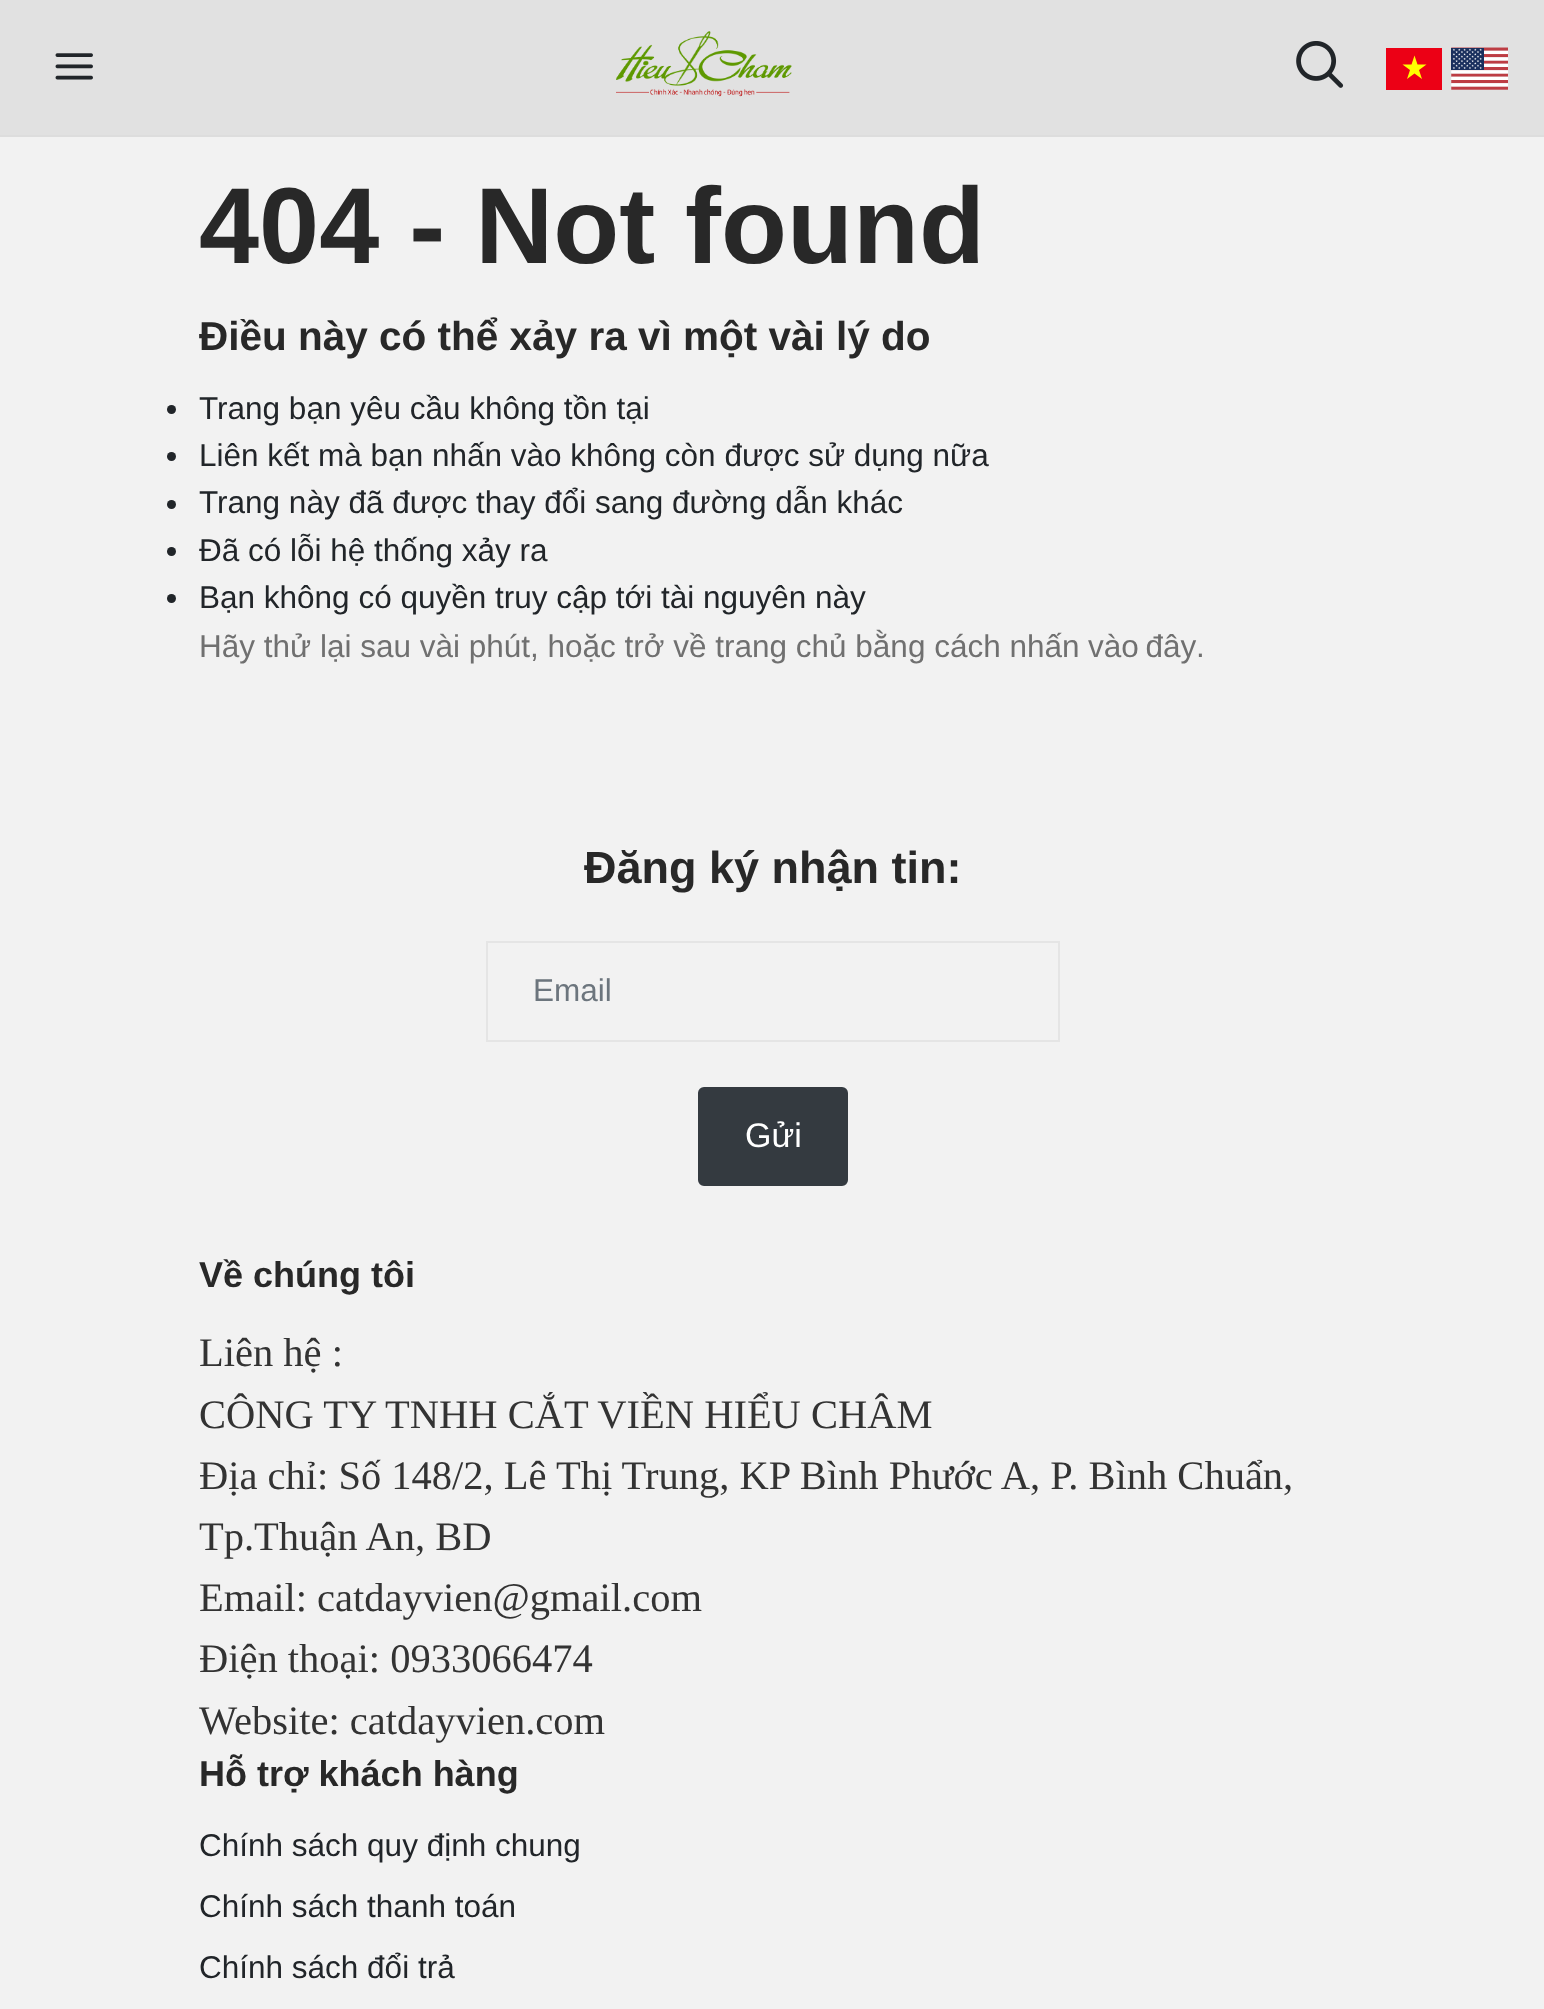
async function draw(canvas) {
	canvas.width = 1544;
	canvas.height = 2009;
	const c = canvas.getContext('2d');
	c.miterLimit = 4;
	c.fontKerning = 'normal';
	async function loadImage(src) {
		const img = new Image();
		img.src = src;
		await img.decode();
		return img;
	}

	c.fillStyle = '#f2f2f2';
	c.fillRect(0, 0, 1544, 2009);
	c.fillStyle = '#e1e1e1';
	c.fillRect(0, 0, 1544, 135);
	c.fillStyle = '#ddd';
	c.fillRect(0, 135, 1544, 2);
	c.drawImage(await loadImage('img1.png'), 55, 53, 38, 27);
	c.drawImage(await loadImage('img2.png'), 616, 31, 176, 66);
	c.drawImage(await loadImage('img3.png'), 1296, 41, 48, 47);
	c.fillStyle = '#ec0015';
	c.fillRect(1386, 48, 56, 42);
	c.fillStyle = '#ff0';
	c.beginPath();
	c.moveTo(1422, 79);
	c.lineTo(1414.5, 73.5);
	c.lineTo(1407, 79);
	c.lineTo(1410, 70);
	c.lineTo(1402.5, 64.5);
	c.lineTo(1411.5, 64.5);
	c.lineTo(1414.5, 55.5);
	c.lineTo(1417.5, 64.5);
	c.lineTo(1426.5, 64.5);
	c.lineTo(1419, 70);
	c.closePath();
	c.fill('evenodd');
	c.drawImage(await loadImage('img4.png'), 1451, 47, 57, 43);
	c.font = 'bold 108px Liberation Sans';
	c.fillStyle = '#282828';
	c.fillText('404 - Not found', 199, 263);
	c.font = 'bold 40.5px Liberation Sans';
	c.fillText('Điều này có thể xảy ra vì một vài lý do', 199, 350);
	c.fillStyle = '#212529';
	c.beginPath();
	c.arc(171.5, 409.5, 4.5, 0, 2 * Math.PI);
	c.fill();
	c.font = '31.5px Liberation Sans';
	c.fillText('Trang bạn yêu cầu không tồn tại', 199, 419);
	c.beginPath();
	c.arc(171.5, 456.5, 4.5, 0, 2 * Math.PI);
	c.fill();
	c.fillText('Liên kết mà bạn nhấn vào không còn được sử dụng nữa', 199, 466);
	c.beginPath();
	c.arc(171.5, 504.5, 4.5, 0, 2 * Math.PI);
	c.fill();
	c.fillText('Trang này đã được thay đổi sang đường dẫn khác', 199, 513);
	c.beginPath();
	c.arc(171.5, 551.5, 4.5, 0, 2 * Math.PI);
	c.fill();
	c.fillText('Đã có lỗi hệ thống xảy ra', 199, 561);
	c.beginPath();
	c.arc(171.5, 598.5, 4.5, 0, 2 * Math.PI);
	c.fill();
	c.fillText('Bạn không có quyền truy cập tới tài nguyên này', 199, 608);
	c.fillStyle = '#707070';
	c.fillText('Hãy thử lại sau vài phút, hoặc trở về trang chủ bằng cách nhấn', 199, 657);
	c.wordSpacing = '-2px';
	c.fillText('vào đây', 1088, 657);
	c.wordSpacing = '0px';
	c.fillText('.', 1196, 657);
	c.font = 'bold 45px Liberation Sans';
	c.fillStyle = '#282828';
	c.fillText('Đăng ký nhận tin:', 584, 883);
	c.strokeStyle = '#e5e5e5';
	c.lineWidth = 2;
	c.strokeRect(487, 942, 572, 99);
	c.font = '31.5px Liberation Sans';
	c.fillStyle = '#6c757d';
	c.fillText('Email', 533, 1001);
	c.fillStyle = '#343a40';
	c.beginPath();
	c.roundRect(699, 1088, 148, 97, 5);
	c.fill();
	c.strokeStyle = '#343a40';
	c.stroke();
	c.font = '34px Liberation Sans';
	c.fillStyle = '#fff';
	c.fillText('Gửi', 745, 1147);
	c.font = 'bold 36px Liberation Sans';
	c.fillStyle = '#282828';
	c.fillText('Về chúng tôi', 199, 1287);
	c.font = '40.5px Liberation Serif';
	c.fillStyle = '#333';
	for (const [text, x, y] of [
		['Liên hệ :', 199, 1366],
		['CÔNG TY TNHH CẮT VIỀN HIỂU CHÂM', 199, 1428],
		['Địa chỉ: Số 148/2, Lê Thị Trung, KP Bình Phước A, P. Bình Chuẩn,', 199, 1489],
		['Tp.Thuận An, BD', 199, 1550],
		['Email: catdayvien@gmail.com', 199, 1611],
		['Điện thoại: 0933066474', 199, 1672],
		['Website: catdayvien.com', 199, 1734],
	]) {
		c.fillText(text, x, y);
	}
	c.font = 'bold 36px Liberation Sans';
	c.fillStyle = '#282828';
	c.fillText('Hỗ trợ khách hàng', 199, 1786);
	c.font = '31.5px Liberation Sans';
	c.fillStyle = '#212529';
	for (const [text, x, y] of [
		['Chính sách quy định chung', 199, 1856],
		['Chính sách thanh toán', 199, 1917],
		['Chính sách đổi trả', 199, 1978],
	]) {
		c.fillText(text, x, y);
	}
}

draw(document.querySelector('canvas'));
